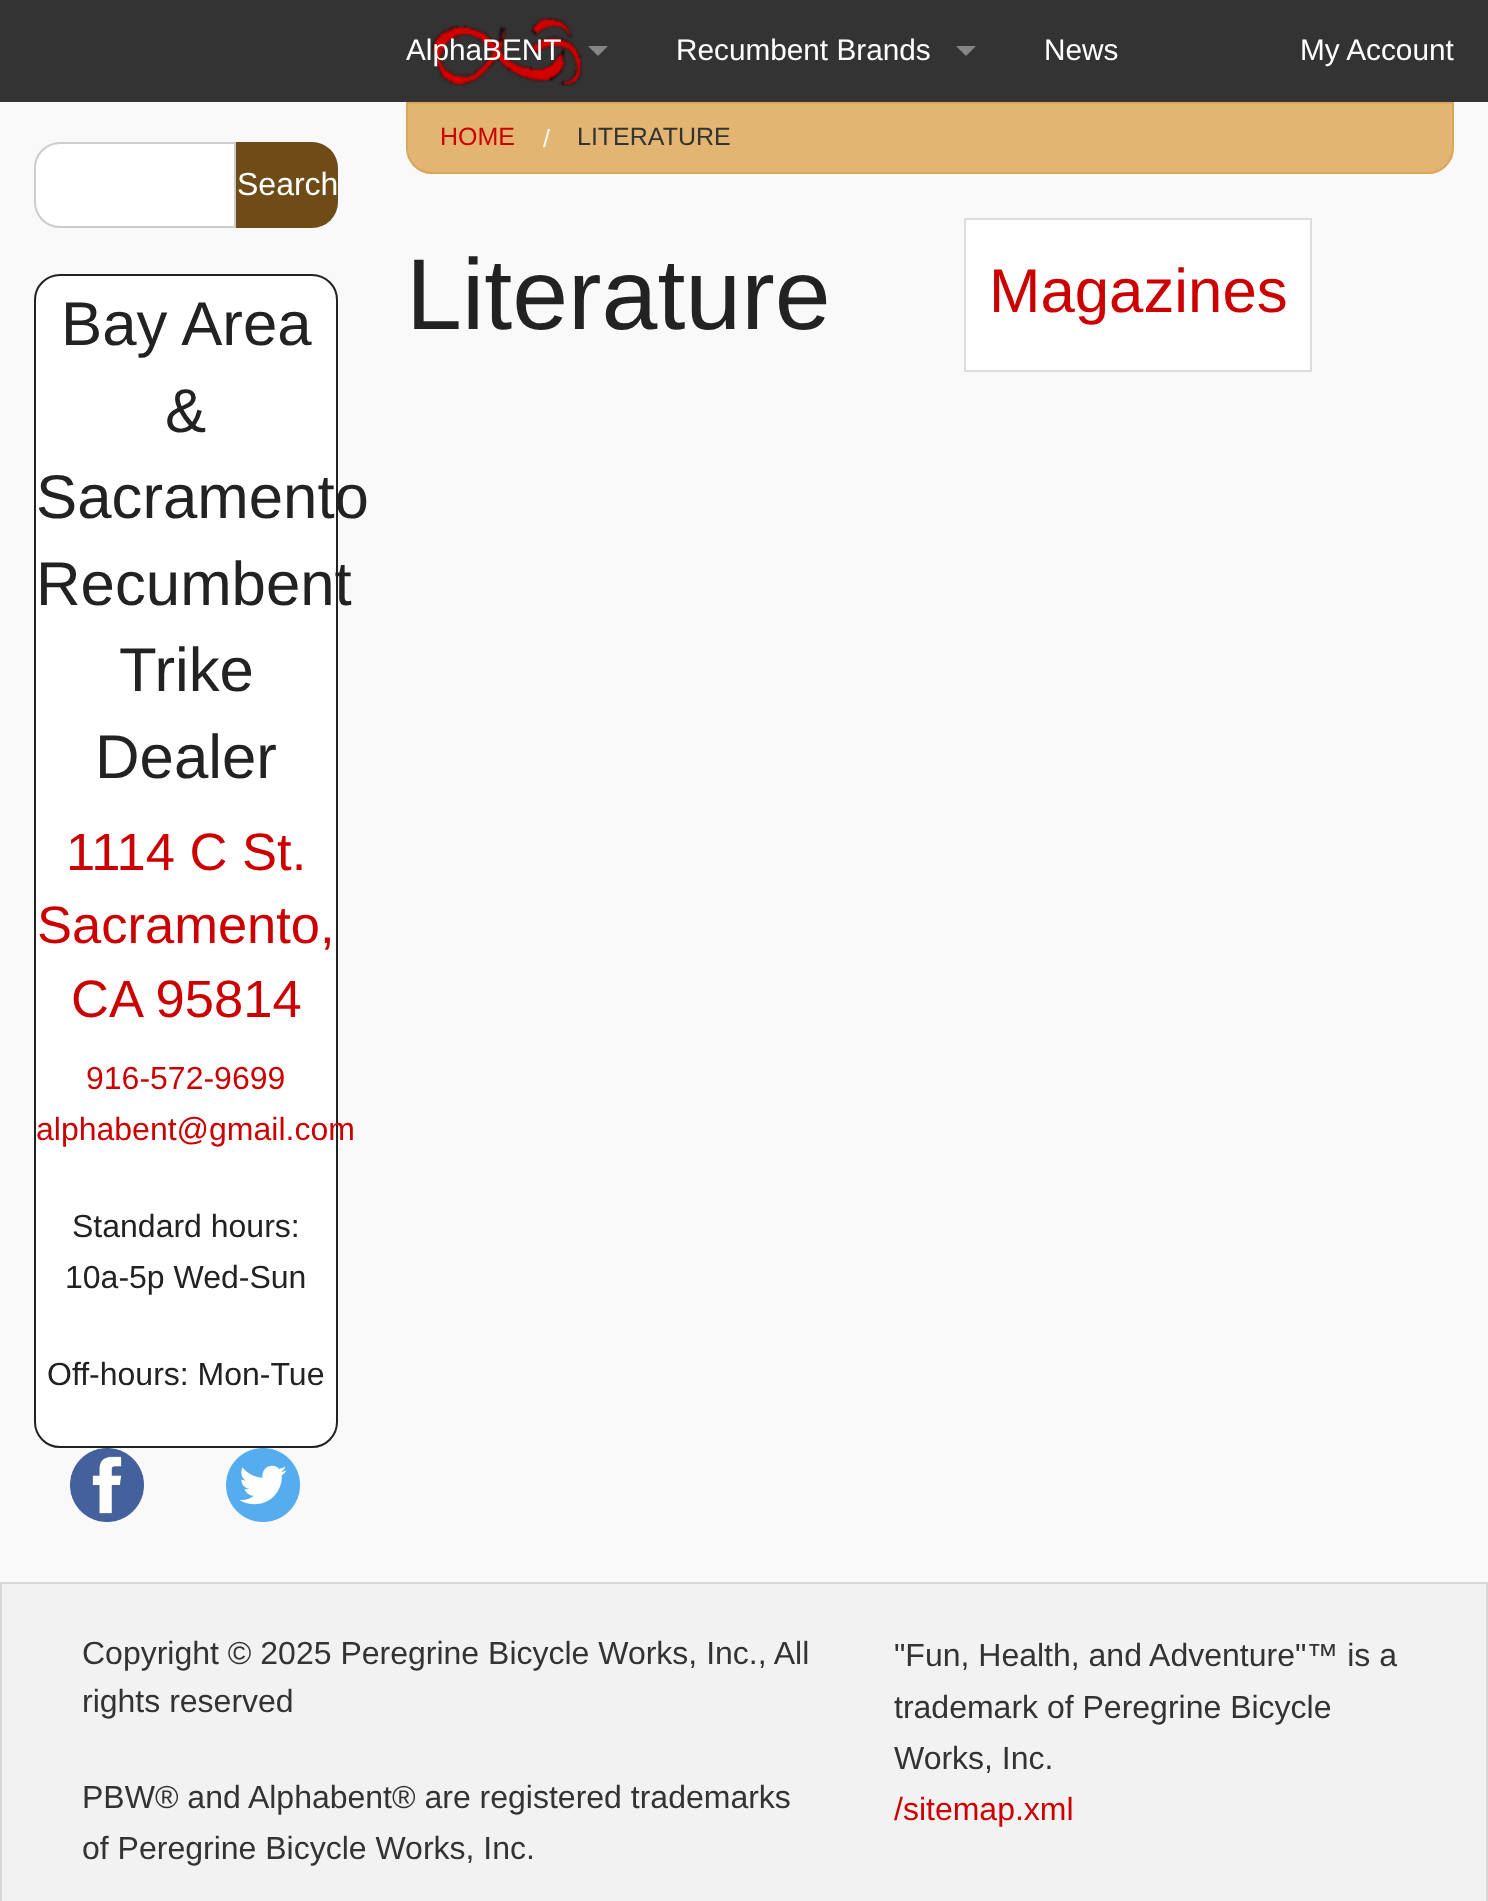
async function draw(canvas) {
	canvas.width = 1488;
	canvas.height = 1901;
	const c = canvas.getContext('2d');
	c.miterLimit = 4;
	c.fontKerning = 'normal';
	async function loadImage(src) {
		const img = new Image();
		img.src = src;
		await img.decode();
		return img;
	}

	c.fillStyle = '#f9f9f9';
	c.fillRect(0, 0, 1488, 1901);
	c.fillStyle = '#333';
	c.fillRect(0, 0, 1488, 102);
	c.drawImage(await loadImage('img1.png'), 432, 18, 150, 68);
	c.font = '29.75px Liberation Sans';
	c.fillStyle = '#fff';
	c.fillText('AlphaBENT', 406, 60);
	c.fillStyle = '#858585';
	c.beginPath();
	c.moveTo(588, 46);
	c.lineTo(608, 46);
	c.lineTo(598, 56);
	c.closePath();
	c.fill();
	c.fillStyle = '#fff';
	c.fillText('Recumbent Brands', 676, 60);
	c.fillStyle = '#858585';
	c.beginPath();
	c.moveTo(956, 46);
	c.lineTo(976, 46);
	c.lineTo(966, 56);
	c.closePath();
	c.fill();
	c.fillStyle = '#fff';
	c.fillText('News', 1044, 60);
	c.fillText('My Account', 1300, 60);
	c.beginPath();
	c.roundRect(35, 143, 200, 84, [25, 0, 0, 25]);
	c.fill();
	c.strokeStyle = '#ccc';
	c.lineWidth = 2;
	c.stroke();
	c.fillStyle = '#6f4b17';
	c.beginPath();
	c.roundRect(236, 142, 102, 86, [0, 26, 26, 0]);
	c.fill();
	c.font = '32px Liberation Sans';
	c.fillStyle = '#fff';
	c.fillText('Search', 237, 195);
	c.beginPath();
	c.roundRect(35, 275, 302, 1172, 25);
	c.fill();
	c.strokeStyle = '#222';
	c.stroke();
	c.font = '61.75px Liberation Sans';
	c.fillStyle = '#222';
	for (const [text, x, y] of [
		['Bay Area', 61, 345],
		['&', 165, 432],
		['Sacramento', 36, 518],
		['Recumbent', 36, 605],
		['Trike', 119, 691],
		['Dealer', 95, 778],
	]) {
		c.fillText(text, x, y);
	}
	c.font = '52.5px Liberation Sans';
	c.fillStyle = '#c00';
	for (const [text, x, y] of [
		['1114 C St.', 66, 870],
		['Sacramento,', 37, 943],
		['CA 95814', 71, 1017],
	]) {
		c.fillText(text, x, y);
	}
	c.font = '32px Liberation Sans';
	c.fillText('916-572-9699', 86, 1089);
	c.fillText('alphabent@gmail.com', 36, 1140);
	c.fillStyle = '#222';
	for (const [text, x, y] of [
		['Standard hours:', 72, 1237],
		['10a-5p Wed-Sun', 65, 1288],
		['Off-hours: Mon-Tue', 47, 1385],
	]) {
		c.fillText(text, x, y);
	}
	c.drawImage(await loadImage('img2.png'), 70, 1448, 74, 74);
	c.drawImage(await loadImage('img3.png'), 226, 1448, 74, 74);
	c.fillStyle = '#e2b573';
	c.beginPath();
	c.roundRect(407, 103, 1046, 70, [0, 0, 25, 25]);
	c.fill();
	c.strokeStyle = '#dca557';
	c.stroke();
	c.font = '25px Liberation Sans';
	c.fillStyle = '#c00';
	c.fillText('HOME', 440, 145);
	c.fillStyle = '#f9f9f9';
	c.fillText('/', 543, 147);
	c.fillStyle = '#333';
	c.fillText('LITERATURE', 577, 145);
	c.font = '100.5px Liberation Sans';
	c.fillStyle = '#222';
	c.fillText('Literature', 406, 329);
	for (const [x, y, w, h, color] of [
		[966, 220, 344, 150, '#fff'],
		[964, 218, 348, 2, '#ddd'],
		[1310, 218, 2, 154, '#ddd'],
		[964, 370, 348, 2, '#ddd'],
		[964, 218, 2, 154, '#ddd'],
	]) {
		c.fillStyle = color;
		c.fillRect(x, y, w, h);
	}
	c.font = '61.75px Liberation Sans';
	c.fillStyle = '#c00';
	c.fillText('Magazines', 989, 312);
	c.fillStyle = '#f2f2f2';
	c.beginPath();
	c.rect(1, 1583, 1486, 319);
	c.fill();
	c.strokeStyle = '#d8d8d8';
	c.stroke();
	c.font = '32px Liberation Sans';
	c.fillStyle = '#333';
	for (const [text, x, y] of [
		['Copyright © 2025 Peregrine Bicycle Works, Inc., All', 82, 1664],
		['rights reserved', 82, 1712],
		['PBW® and Alphabent® are registered trademarks', 82, 1808],
		['of Peregrine Bicycle Works, Inc.', 82, 1859],
		['"Fun, Health, and Adventure"™ is a', 894, 1666],
		['trademark of Peregrine Bicycle', 894, 1718],
		['Works, Inc.', 894, 1769],
	]) {
		c.fillText(text, x, y);
	}
	c.fillStyle = '#c00';
	c.fillText('/sitemap.xml', 894, 1820);
}

draw(document.querySelector('canvas'));
